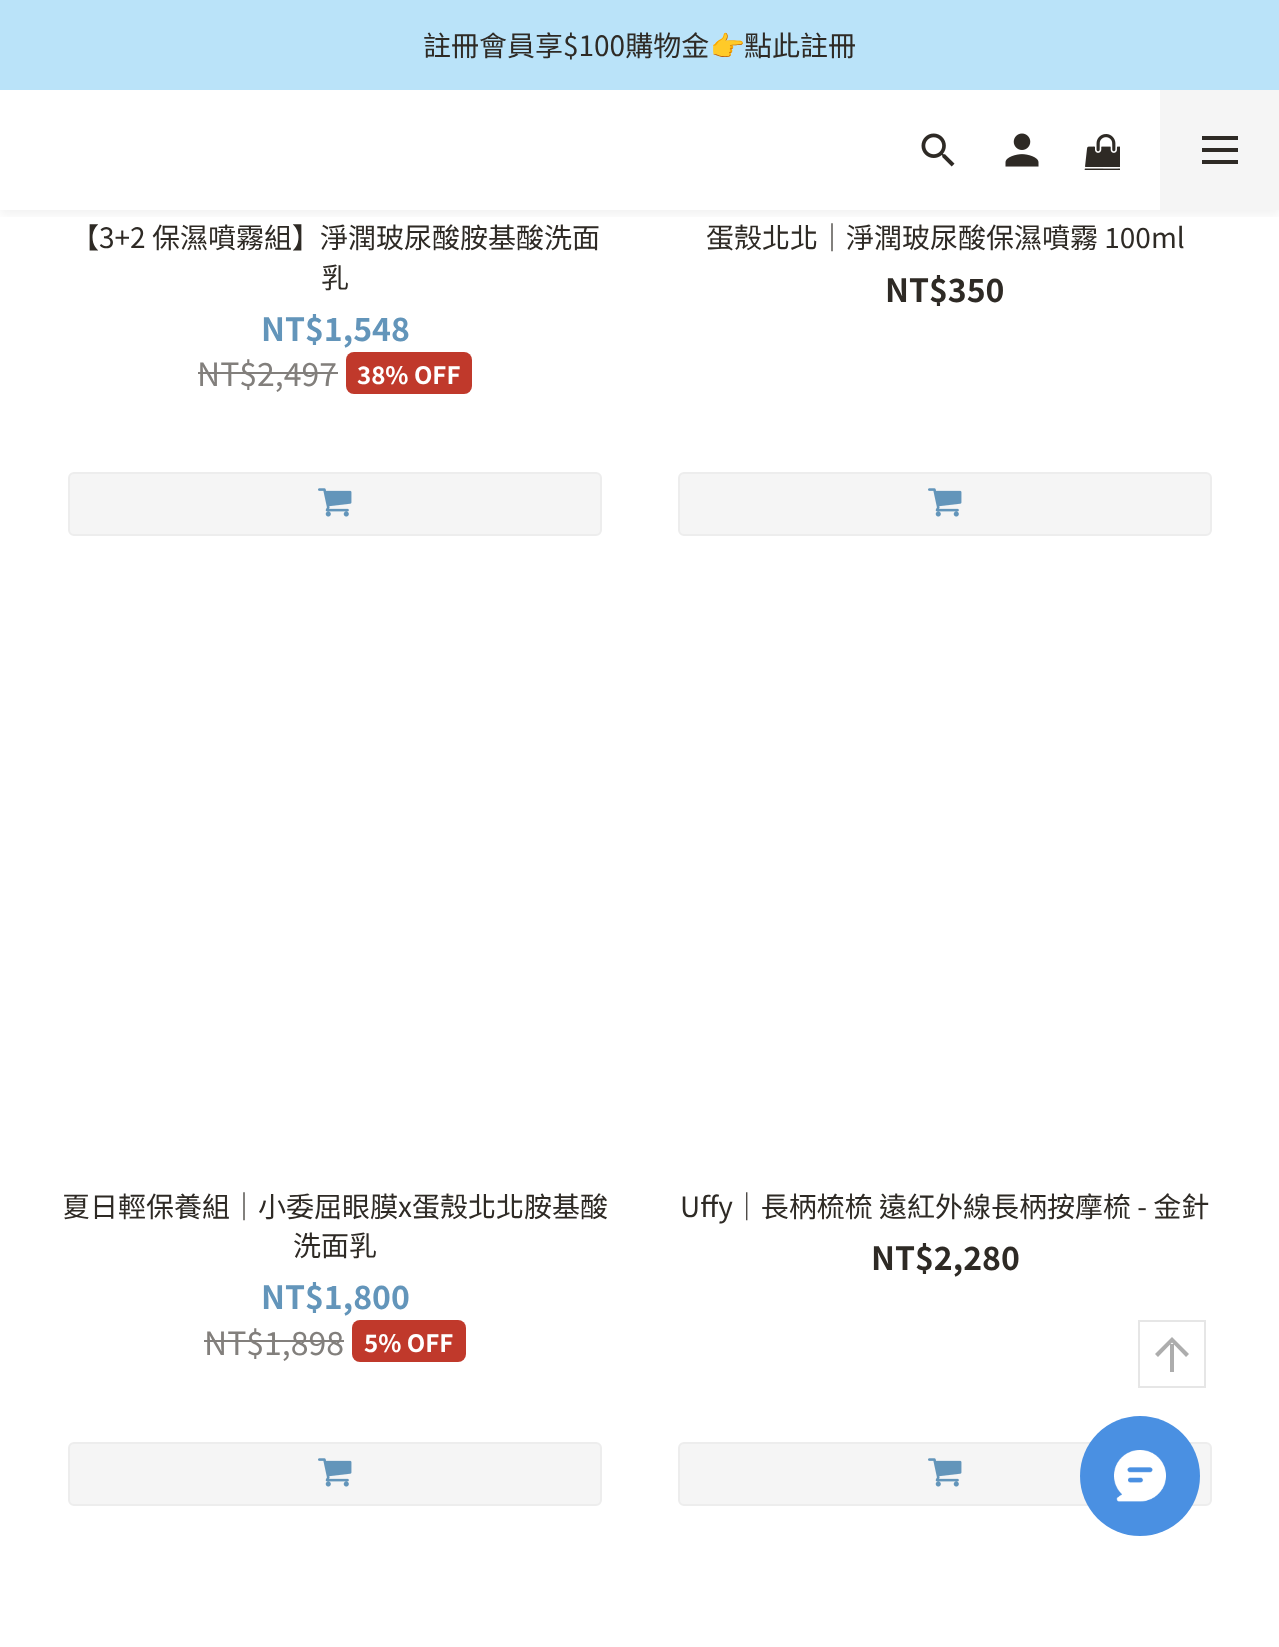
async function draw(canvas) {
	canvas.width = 1279;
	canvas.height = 1647;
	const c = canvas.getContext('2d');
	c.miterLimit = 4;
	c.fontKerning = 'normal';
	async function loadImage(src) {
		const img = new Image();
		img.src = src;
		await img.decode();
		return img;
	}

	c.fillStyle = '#fff';
	c.fillRect(0, 0, 1279, 1647);
	c.fillStyle = '#bae3f9';
	c.fillRect(0, 0, 1279, 90);
	c.font = '28px Noto Sans TC';
	c.fillStyle = '#2e2a25';
	c.fillText('註冊會員享$100購物金', 423, 56);
	c.font = '28px Noto Color Emoji';
	c.fillText('👉', 710, 56);
	c.font = '28px Noto Sans TC';
	c.fillText('點此註冊', 744, 56);
	c.save();
	c.beginPath();
	c.rect(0, 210, 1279, 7);
	c.clip();
	c.fillStyle = '#0000000f';
	c.filter = 'blur(6px)';
	c.beginPath();
	c.rect(0, 94, 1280, 120);
	c.fill();
	c.filter = 'none';
	c.restore();
	c.drawImage(await loadImage('img1.png'), 921, 133, 34, 34);
	c.drawImage(await loadImage('img2.png'), 1005, 133, 34, 34);
	c.drawImage(await loadImage('img3.png'), 1084, 134, 36, 36);
	for (const [x, y, w, h, color] of [
		[1160, 90, 119, 120, '#f5f5f5'],
		[1202, 148, 36, 4, '#2e2a25'],
		[1202, 136, 36, 4, '#2e2a25'],
		[1202, 160, 36, 4, '#2e2a25'],
	]) {
		c.fillStyle = color;
		c.fillRect(x, y, w, h);
	}
	c.fillText('【3+2 保濕噴霧組】淨潤玻尿酸胺基酸洗面', 71, 248);
	c.fillText('乳', 321, 288);
	c.font = 'bold 32px Noto Sans TC';
	c.fillStyle = '#6395ba';
	c.fillText('NT$1,548', 261, 341);
	c.font = '32px Noto Sans TC';
	c.fillStyle = '#827f7c';
	c.fillText('NT$2,497', 197, 386);
	c.fillRect(198, 372, 140, 2);
	c.fillStyle = '#c0392b';
	c.beginPath();
	c.roundRect(346, 352, 126, 42, 8);
	c.fill();
	c.font = 'bold 24px Noto Sans TC';
	c.fillStyle = '#fff';
	c.fillText('38% OFF', 357, 384);
	c.fillStyle = '#f5f5f5';
	c.beginPath();
	c.roundRect(69, 473, 532, 62, 5);
	c.fill();
	c.strokeStyle = '#ededed';
	c.lineWidth = 2;
	c.stroke();
	c.drawImage(await loadImage('img4.png'), 318, 488, 34, 29);
	c.font = '28px Noto Sans TC';
	c.fillStyle = '#2e2a25';
	c.fillText('蛋殼北北｜淨潤玻尿酸保濕噴霧 100ml', 706, 248);
	c.font = 'bold 32px Noto Sans TC';
	c.fillText('NT$350', 885, 302);
	c.fillStyle = '#f5f5f5';
	c.beginPath();
	c.roundRect(679, 473, 532, 62, 5);
	c.fill();
	c.stroke();
	c.drawImage(await loadImage('img4.png'), 928, 488, 34, 29);
	c.font = '28px Noto Sans TC';
	c.fillStyle = '#2e2a25';
	c.fillText('夏日輕保養組｜小委屈眼膜x蛋殼北北胺基酸', 62, 1217);
	c.fillText('洗面乳', 293, 1256);
	c.font = 'bold 32px Noto Sans TC';
	c.fillStyle = '#6395ba';
	c.fillText('NT$1,800', 261, 1309);
	c.font = '32px Noto Sans TC';
	c.fillStyle = '#827f7c';
	c.fillText('NT$1,898', 204, 1355);
	c.fillRect(204, 1340, 140, 2);
	c.fillStyle = '#c0392b';
	c.beginPath();
	c.roundRect(352, 1320, 114, 42, 8);
	c.fill();
	c.font = 'bold 24px Noto Sans TC';
	c.fillStyle = '#fff';
	c.fillText('5% OFF', 364, 1352);
	c.fillStyle = '#f5f5f5';
	c.beginPath();
	c.roundRect(69, 1443, 532, 62, 5);
	c.fill();
	c.stroke();
	c.drawImage(await loadImage('img4.png'), 318, 1458, 34, 29);
	c.font = '28px Noto Sans TC';
	c.fillStyle = '#2e2a25';
	c.fillText('Uffy｜長柄梳梳 遠紅外線長柄按摩梳 - 金針', 680, 1217);
	c.font = 'bold 32px Noto Sans TC';
	c.fillText('NT$2,280', 871, 1270);
	c.fillStyle = '#f5f5f5';
	c.beginPath();
	c.roundRect(679, 1443, 532, 62, 5);
	c.fill();
	c.stroke();
	c.drawImage(await loadImage('img4.png'), 928, 1458, 34, 29);
	c.strokeStyle = '#e6e6e6';
	c.strokeRect(1139, 1321, 66, 66);
	c.fillStyle = '#adadad';
	c.beginPath();
	c.moveTo(1172, 1337);
	c.lineTo(1189, 1354);
	c.lineTo(1186, 1357);
	c.lineTo(1172, 1342.5);
	c.closePath();
	c.moveTo(1155, 1354);
	c.lineTo(1172, 1337);
	c.lineTo(1172, 1342.5);
	c.lineTo(1158, 1357);
	c.closePath();
	c.fill();
	c.fillStyle = '#999999cc';
	c.fillRect(1170, 1344, 4, 28);
	c.fillStyle = '#4a90e2';
	c.beginPath();
	c.arc(1140, 1476, 60, 0, 2 * Math.PI);
	c.fill();
	c.drawImage(await loadImage('img5.png'), 1114, 1450, 52, 52);
}

draw(document.querySelector('canvas'));
